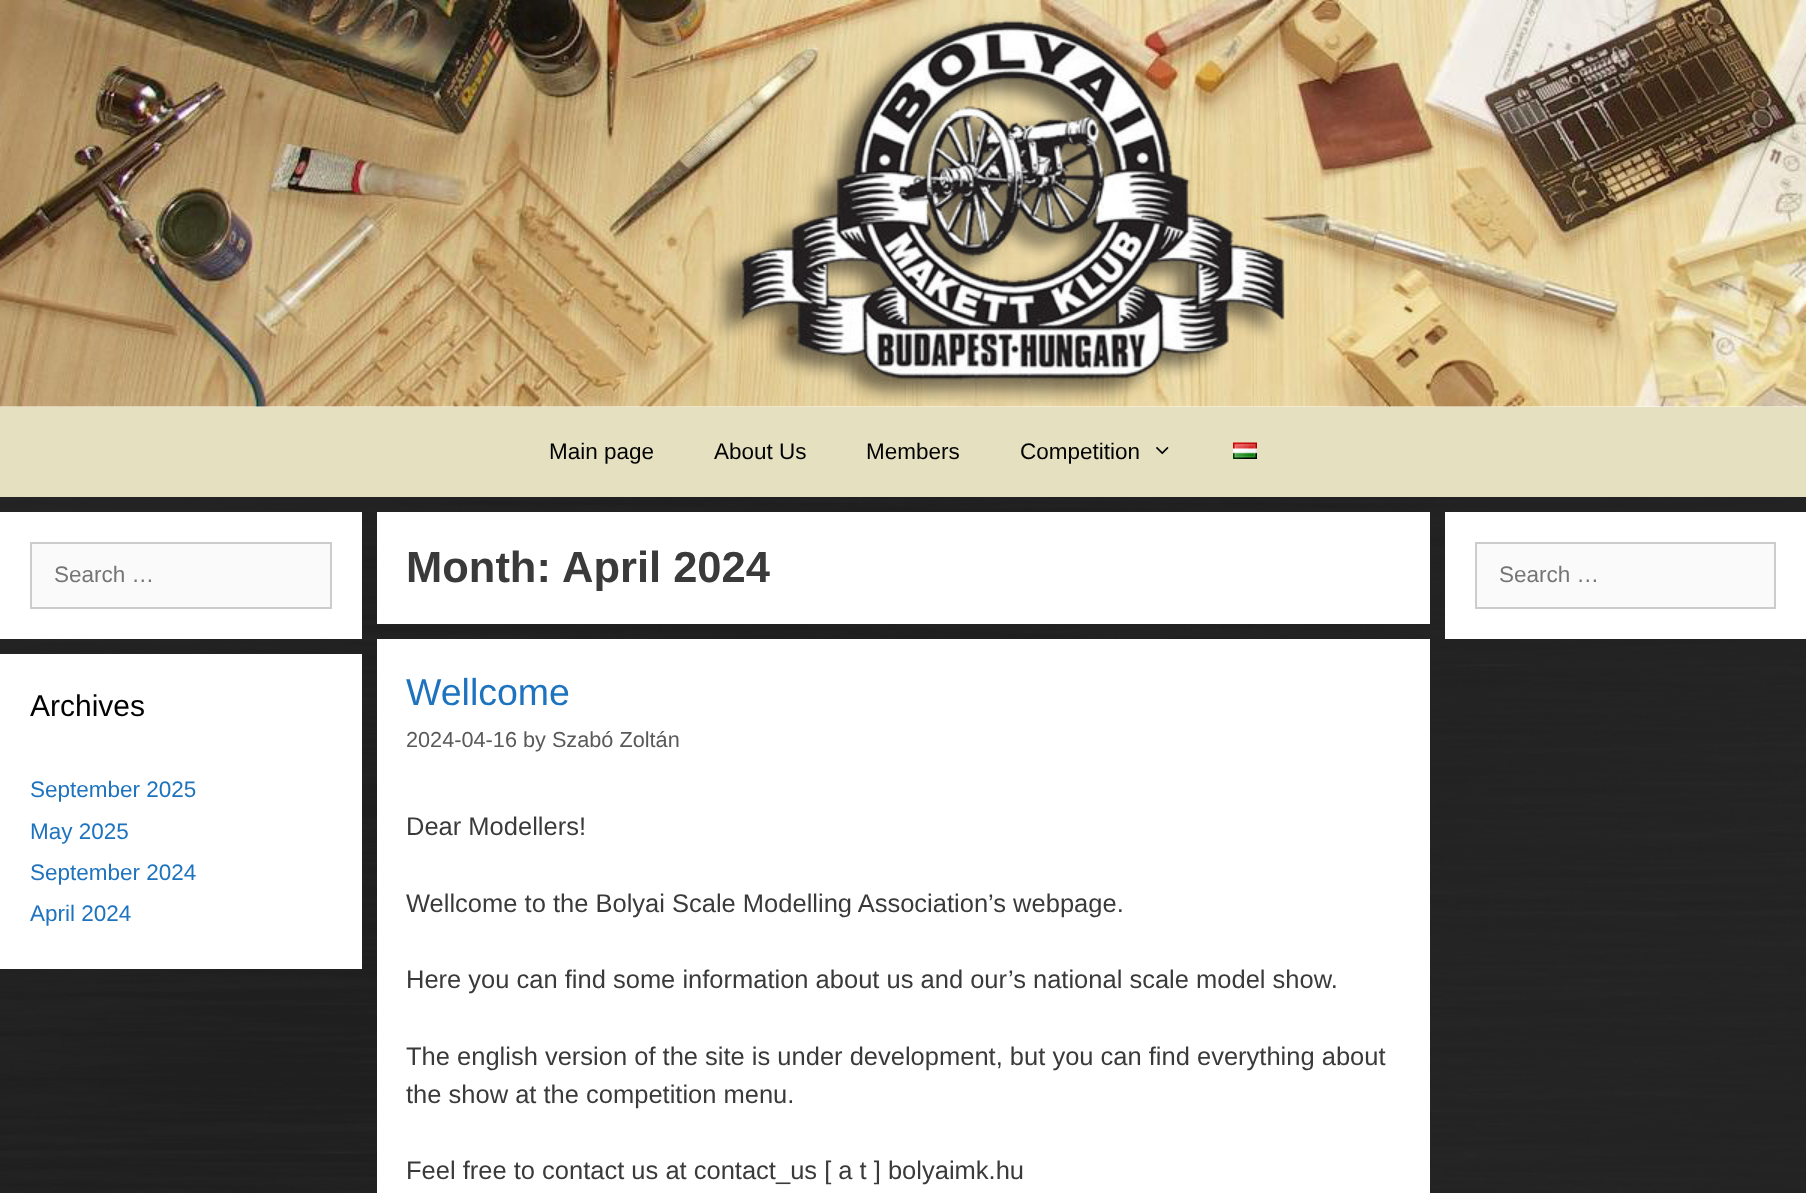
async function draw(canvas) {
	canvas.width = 1806;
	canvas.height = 1193;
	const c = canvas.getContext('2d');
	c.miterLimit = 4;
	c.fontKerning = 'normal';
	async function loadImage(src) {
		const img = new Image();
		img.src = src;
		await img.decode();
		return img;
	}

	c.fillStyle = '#fff';
	c.fillRect(0, 0, 1806, 1193);
	c.drawImage(await loadImage('img1.png'), 0, 497, 1806, 696);
	c.drawImage(await loadImage('img2.png'), 0, 0, 1806, 407);
	c.fillStyle = '#e5e1c0';
	c.fillRect(0, 407, 1806, 90);
	c.font = '22.5px Liberation Sans';
	c.fillStyle = '#020202';
	for (const [text, x, y] of [
		['Main page', 549, 459],
		['About Us', 714, 459],
		['Members', 866, 459],
		['Competition', 1020, 459],
	]) {
		c.fillText(text, x, y);
	}
	c.drawImage(await loadImage('img3.png'), 1156, 447, 13, 8);
	c.drawImage(await loadImage('img4.png'), 1233, 442, 24, 17);
	c.fillStyle = '#fff';
	c.fillRect(0, 512, 362, 127);
	c.fillStyle = '#fafafa';
	c.beginPath();
	c.rect(31, 543, 300, 65);
	c.fill();
	c.strokeStyle = '#ccc';
	c.lineWidth = 2;
	c.stroke();
	c.fillStyle = '#757575';
	c.fillText('Search …', 54, 582);
	c.fillStyle = '#fff';
	c.fillRect(0, 654, 362, 315);
	c.font = '30px Liberation Sans';
	c.fillStyle = '#020202';
	c.fillText('Archives', 30, 716);
	c.font = '22.5px Liberation Sans';
	c.fillStyle = '#1e73be';
	for (const [text, x, y] of [
		['September 2025', 30, 797],
		['May 2025', 30, 839],
		['September 2024', 30, 880],
		['April 2024', 30, 921],
	]) {
		c.fillText(text, x, y);
	}
	c.fillStyle = '#fff';
	c.fillRect(377, 512, 1053, 112);
	c.font = 'bold 43.5px Liberation Sans';
	c.fillStyle = '#3a3a3a';
	c.fillText('Month:', 406, 582);
	c.fillText('April 2024', 562, 582);
	c.fillStyle = '#fff';
	c.fillRect(377, 639, 1053, 554);
	c.font = '37.5px Liberation Sans';
	c.fillStyle = '#1e73be';
	c.fillText('Wellcome', 406, 705);
	c.font = '21.7px Liberation Sans';
	c.fillStyle = '#595959';
	c.fillText('2024-04-16 by Szabó Zoltán', 406, 747);
	c.font = '25.5px Liberation Sans';
	c.fillStyle = '#3a3a3a';
	for (const [text, x, y] of [
		['Dear Modellers!', 406, 835],
		['Wellcome to the Bolyai Scale Modelling Association’s webpage.', 406, 912],
		['Here you can find some information about us and our’s national scale model show.', 406, 988],
		['The english version of the site is under development, but you can find everything about', 406, 1065],
		['the show at the competition menu.', 406, 1103],
		['Feel free to contact us at contact_us [ a t ] bolyaimk.hu', 406, 1179],
	]) {
		c.fillText(text, x, y);
	}
	c.fillStyle = '#fff';
	c.fillRect(1445, 512, 361, 127);
	c.fillStyle = '#fafafa';
	c.beginPath();
	c.rect(1476, 543, 299, 65);
	c.fill();
	c.stroke();
	c.font = '22.5px Liberation Sans';
	c.fillStyle = '#757575';
	c.fillText('Search …', 1499, 582);
}

draw(document.querySelector('canvas'));
